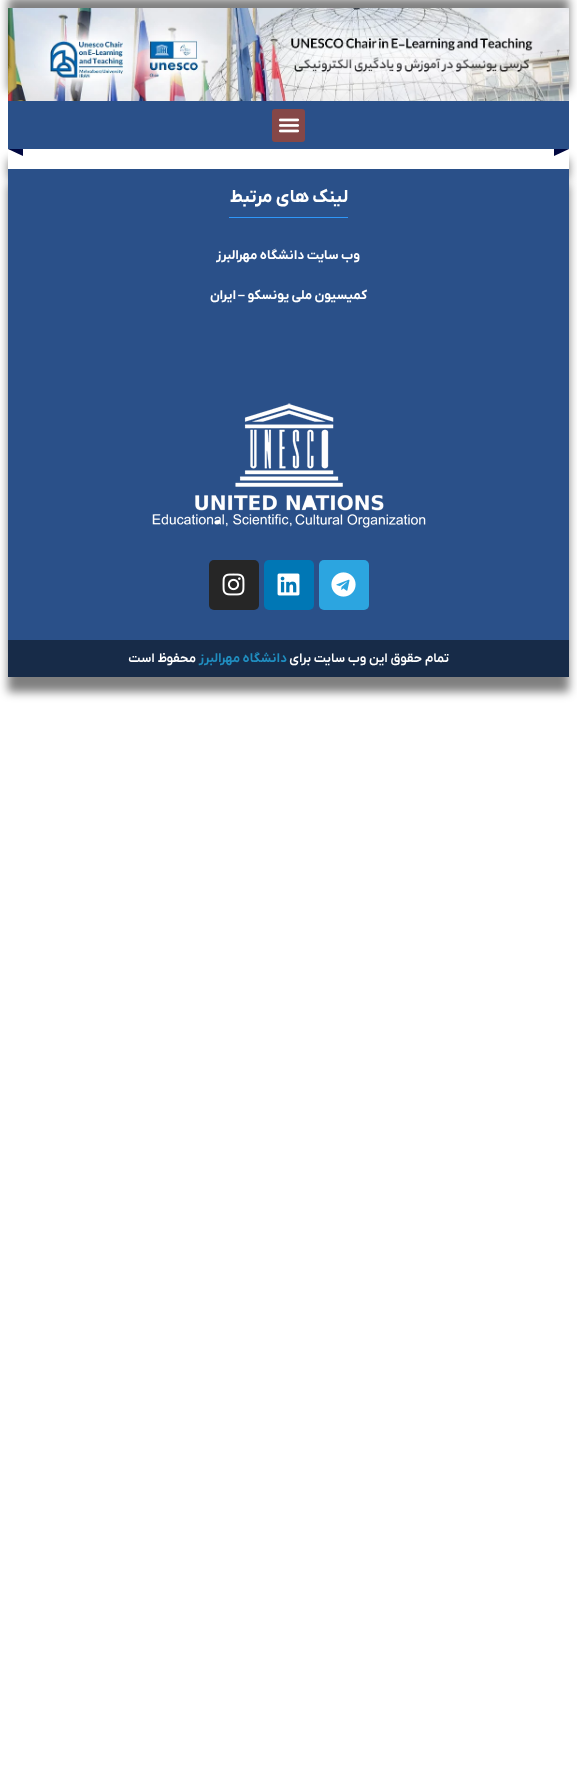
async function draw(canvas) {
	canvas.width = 577;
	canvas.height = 1778;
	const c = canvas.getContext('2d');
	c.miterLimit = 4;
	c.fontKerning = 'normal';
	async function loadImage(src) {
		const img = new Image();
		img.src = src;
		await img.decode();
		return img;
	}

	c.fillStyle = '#fff';
	c.fillRect(0, 0, 577, 1778);
	c.fillStyle = '#00000080';
	c.filter = 'blur(5px)';
	c.beginPath();
	c.rect(8, -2, 561, 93);
	c.fill();
	c.filter = 'none';
	c.drawImage(await loadImage('img1.png'), 8, 8, 561, 93);
	c.save();
	c.beginPath();
	c.moveTo(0, 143);
	c.lineTo(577, 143);
	c.lineTo(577, 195);
	c.lineTo(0, 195);
	c.closePath();
	c.moveTo(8, 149);
	c.lineTo(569, 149);
	c.lineTo(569, 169);
	c.lineTo(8, 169);
	c.closePath();
	c.clip('evenodd');
	c.filter = 'blur(5px)';
	c.beginPath();
	c.rect(8, 159, 561, 20);
	c.fill();
	c.filter = 'none';
	c.restore();
	c.fillStyle = '#2a5089';
	c.fillRect(8, 101, 561, 48);
	c.fillStyle = '#854747';
	c.beginPath();
	c.roundRect(272, 109, 33, 33, 3);
	c.fill();
	c.drawImage(await loadImage('img2.png'), 278, 118, 22, 15);
	c.fillStyle = '#010840';
	c.beginPath();
	c.moveTo(554, 149);
	c.lineTo(569, 149);
	c.lineTo(554, 156);
	c.closePath();
	c.fill();
	c.beginPath();
	c.moveTo(23, 149);
	c.lineTo(23, 156);
	c.lineTo(8, 149);
	c.closePath();
	c.fill();
	c.fillStyle = '#00000080';
	c.filter = 'blur(5px)';
	c.beginPath();
	c.rect(8, 184, 561, 471);
	c.fill();
	c.filter = 'none';
	c.fillStyle = '#2a5089';
	c.fillRect(8, 169, 561, 471);
	c.fillStyle = '#2e97fa';
	c.fillRect(229, 217, 119, 1);
	c.direction = 'rtl';
	c.font = 'bold 18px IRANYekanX';
	c.fillStyle = '#fff';
	c.fillText('لينک های مرتبط', 348, 202);
	c.font = 'bold 13px IRANYekanX';
	c.fillText('وب سایت دانشگاه مهرالبرز', 360, 259);
	c.fillText('کمیسیون ملی یونسکو', 367, 299);
	c.font = 'bold 13px Liberation Sans';
	c.fillText('–', 245, 299);
	c.font = 'bold 13px IRANYekanX';
	c.fillText('ایران', 236, 299);
	c.drawImage(await loadImage('img3.png'), 152, 403, 274, 125);
	c.fillStyle = '#2ca5e0';
	c.beginPath();
	c.roundRect(319, 560, 50, 50, 5);
	c.fill();
	c.drawImage(await loadImage('img4.png'), 331, 572, 25, 25);
	c.fillStyle = '#0077b5';
	c.beginPath();
	c.roundRect(264, 560, 50, 50, 5);
	c.fill();
	c.drawImage(await loadImage('img5.png'), 277, 573, 23, 23);
	c.fillStyle = '#262626';
	c.beginPath();
	c.roundRect(209, 560, 50, 50, 5);
	c.fill();
	c.drawImage(await loadImage('img6.png'), 222, 573, 23, 23);
	c.fillStyle = '#00000080';
	c.filter = 'blur(5px)';
	c.beginPath();
	c.rect(8, 655, 561, 37);
	c.fill();
	c.filter = 'none';
	c.fillStyle = '#172b48';
	c.fillRect(8, 640, 561, 37);
	c.font = '600 13px IRANYekanX';
	c.fillStyle = '#fff';
	c.fillText('تمام حقوق این وب سایت برای', 449, 662);
	c.font = 'bold 13px IRANYekanX';
	c.fillStyle = '#208dbf';
	c.fillText('دانشگاه مهرالبرز', 287, 662);
	c.font = '600 13px IRANYekanX';
	c.fillStyle = '#fff';
	c.fillText('محفوظ است', 196, 662);
}

draw(document.querySelector('canvas'));
